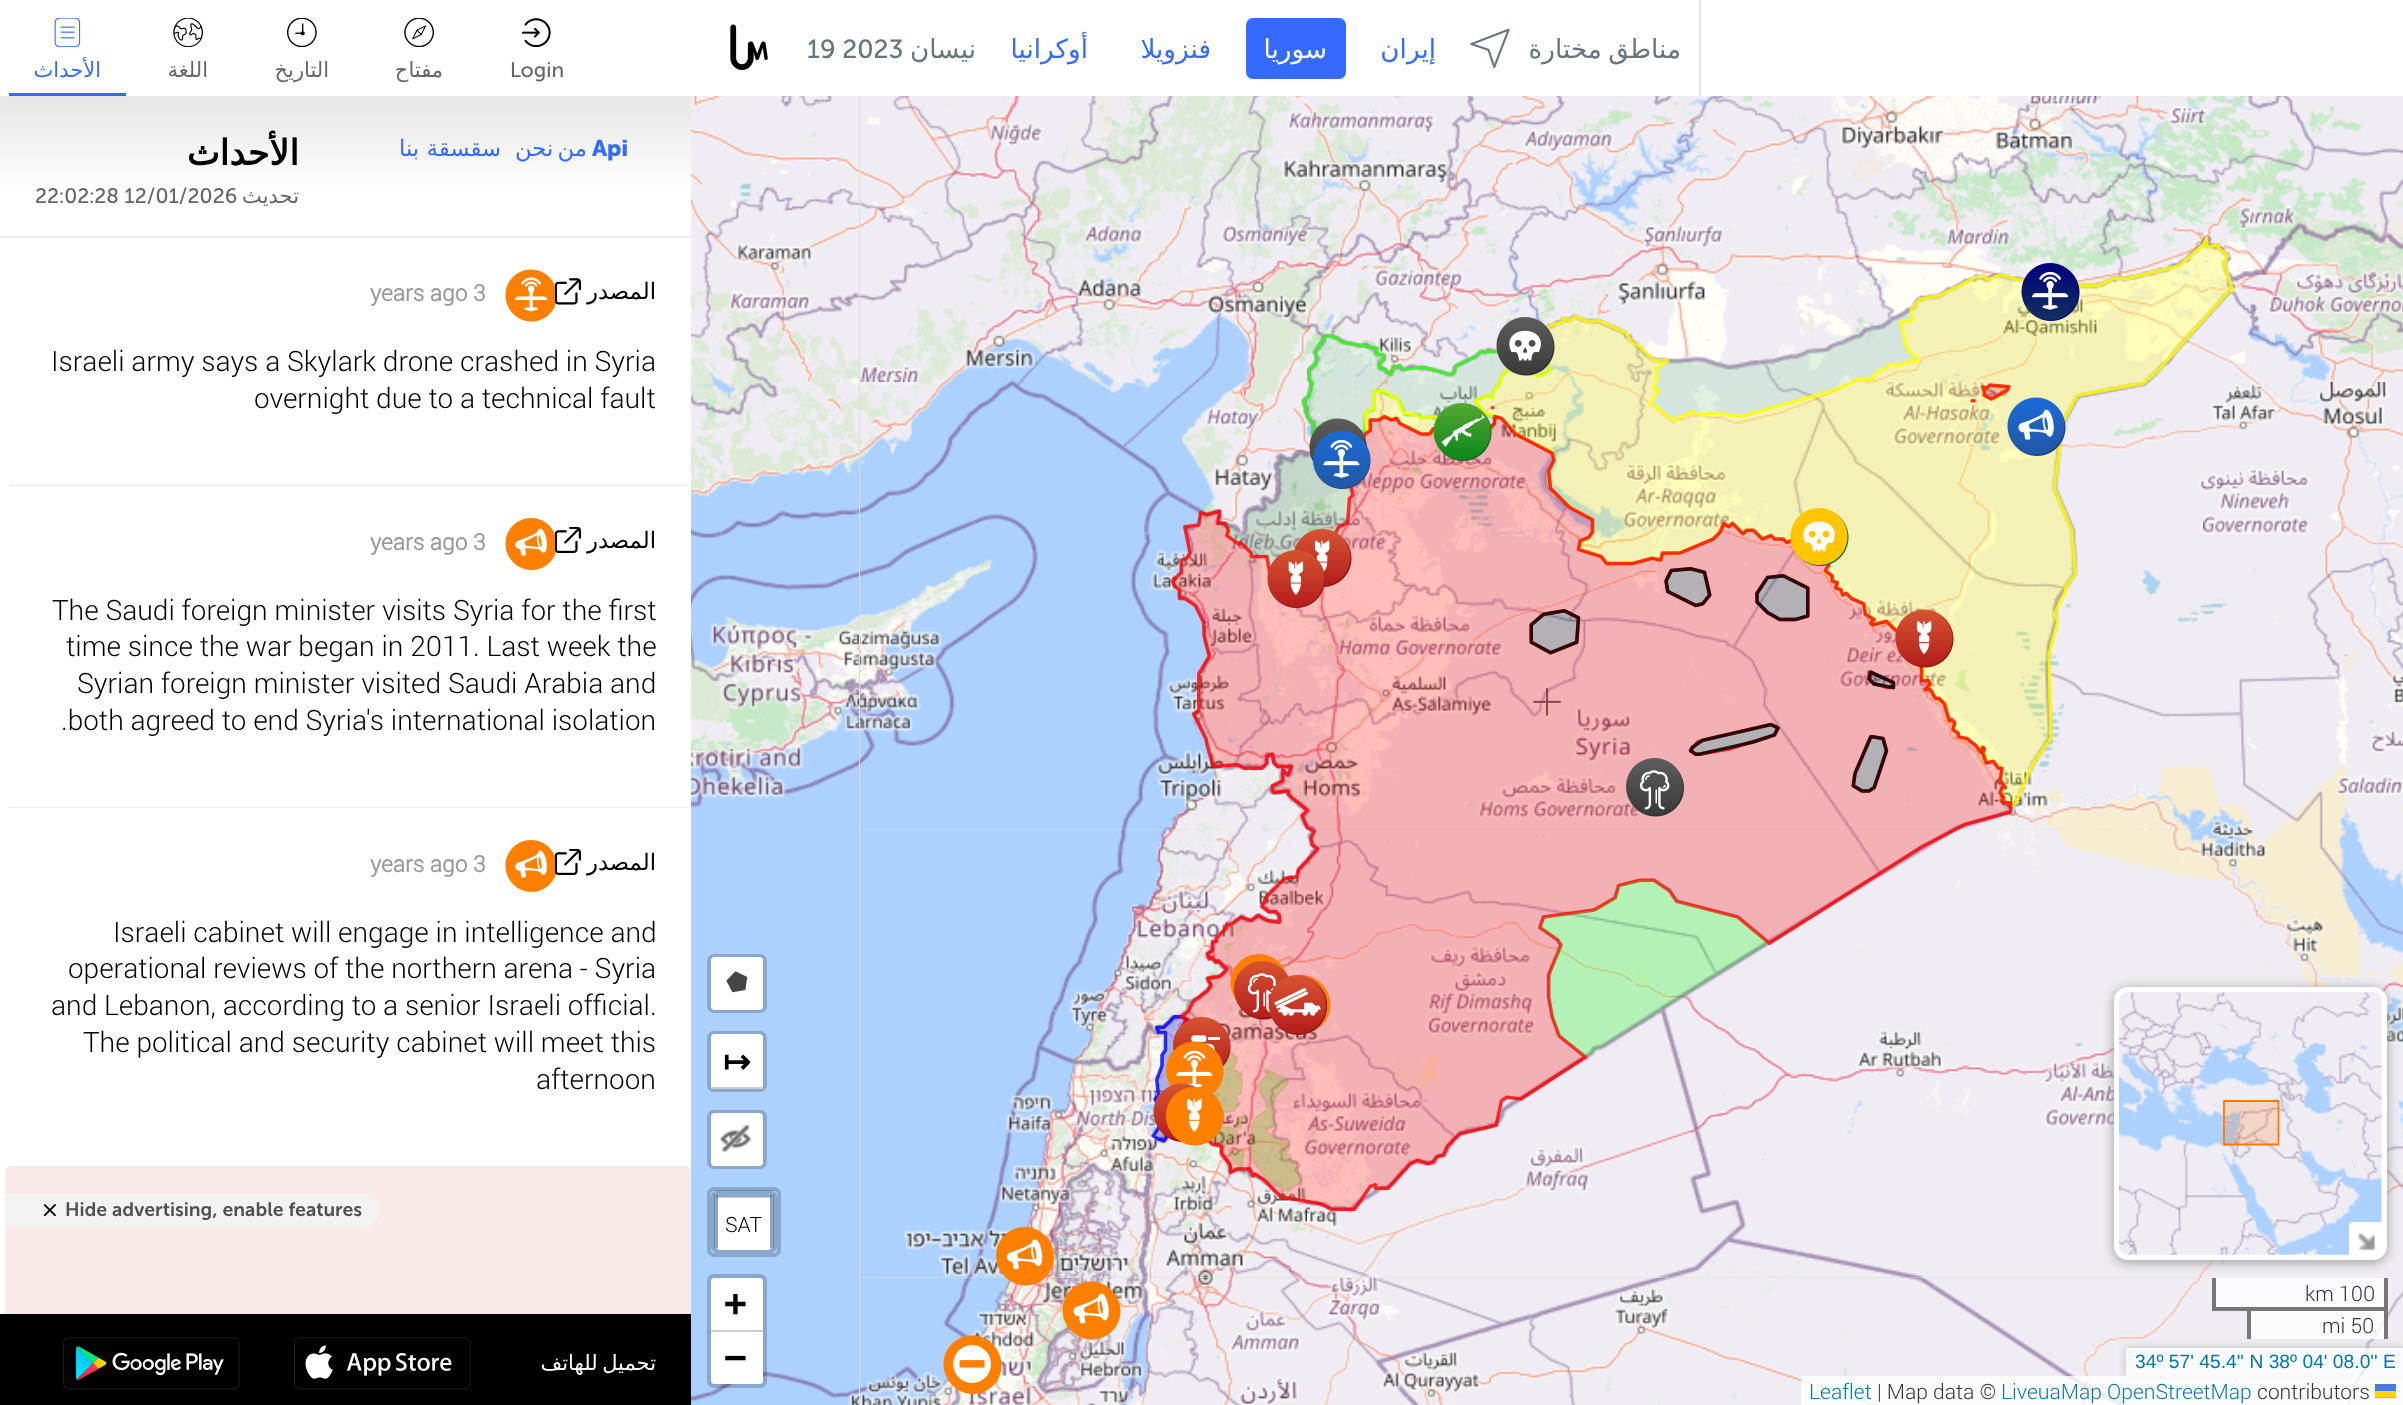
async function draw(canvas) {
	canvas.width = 2403;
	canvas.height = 1405;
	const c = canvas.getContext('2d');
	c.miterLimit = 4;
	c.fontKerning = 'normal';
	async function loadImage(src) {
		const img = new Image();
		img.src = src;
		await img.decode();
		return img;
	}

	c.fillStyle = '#ddd';
	c.fillRect(0, 0, 2403, 1405);
	c.fillStyle = '#fff';
	c.fillRect(691, 0, 1712, 96);
	c.drawImage(await loadImage('img1.png'), 730, 24, 38, 46);
	c.font = '26.25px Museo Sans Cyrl';
	c.fillStyle = '#66757f';
	c.fillText('19 2023', 807, 58);
	c.direction = 'rtl';
	c.font = '26.25px DejaVu Sans';
	c.fillText('نيسان', 976, 58);
	c.fillStyle = '#346afe';
	c.fillText('أوكرانيا', 1088, 58);
	c.fillText('فنزويلا', 1211, 58);
	c.beginPath();
	c.roundRect(1246, 18, 100, 61, 7);
	c.fill();
	c.fillStyle = '#fff';
	c.fillText('سوريا', 1327, 58);
	c.fillStyle = '#346afe';
	c.fillText('إيران', 1436, 58);
	c.drawImage(await loadImage('img2.png'), 1470, 28, 40, 40);
	c.wordSpacing = '-2px';
	c.fillStyle = '#66757f';
	c.fillText('مناطق مختارة', 1681, 58);
	for (const [x, y, w, h, color] of [
		[1699, 0, 2, 96, '#e6e6e6'],
		[0, 0, 691, 1314, '#fff'],
		[9, 93, 117, 3, '#346afe'],
	]) {
		c.fillStyle = color;
		c.fillRect(x, y, w, h);
	}
	c.drawImage(await loadImage('img3.png'), 54, 18, 27, 29);
	c.wordSpacing = '0px';
	c.font = '21px DejaVu Sans';
	c.fillText('الأحداث', 101, 77);
	c.drawImage(await loadImage('img4.png'), 173, 18, 30, 29);
	c.fillStyle = '#666';
	c.fillText('اللغة', 208, 77);
	c.drawImage(await loadImage('img5.png'), 287, 18, 30, 29);
	c.fillText('التاريخ', 329, 77);
	c.drawImage(await loadImage('img6.png'), 404, 18, 30, 29);
	c.fillText('مفتاح', 443, 77);
	c.drawImage(await loadImage('img7.png'), 522, 18, 29, 29);
	c.direction = 'ltr';
	c.font = '21px Museo Sans Cyrl';
	c.fillText('Login', 510, 77);
	c.drawImage(await loadImage('img16.png'), 691, 96, 168, 286);
	c.drawImage(await loadImage('img8.png'), 0, 96, 692, 98);
	c.fillStyle = '#ededed';
	c.fillRect(0, 236, 691, 2);
	c.direction = 'rtl';
	c.font = 'bold 35px DejaVu Sans';
	c.fillStyle = '#000';
	c.fillText('الأحداث', 299, 165);
	c.direction = 'ltr';
	c.font = '21px Museo Sans Cyrl';
	c.fillStyle = '#666';
	c.fillText('22:02:28 12/01/2026', 35, 203);
	c.direction = 'rtl';
	c.font = '21px DejaVu Sans';
	c.fillText('تحديث', 299, 203);
	c.font = '22.75px DejaVu Sans';
	c.fillStyle = '#346afe';
	c.fillText('سقسقة بنا', 501, 156);
	c.wordSpacing = '-3px';
	c.fillText('من نحن', 587, 156);
	c.wordSpacing = '0px';
	c.direction = 'ltr';
	c.font = 'bold 22.75px Museo Sans Cyrl';
	c.fillText('Api', 592, 156);
	c.fillStyle = '#ececec';
	c.beginPath();
	c.moveTo(686, 486);
	c.bezierCurveTo(689, 486, 691, 484, 691, 481);
	c.bezierCurveTo(691, 483, 689, 485, 686, 485);
	c.lineTo(10, 485);
	c.lineTo(8, 486);
	c.lineTo(10, 486);
	c.closePath();
	c.fill();
	c.font = 'bold 22.75px Roboto';
	c.fillStyle = '#999';
	c.fillText('years ago 3', 370, 301);
	c.drawImage(await loadImage('img9.png'), 505, 269, 51, 53);
	c.drawImage(await loadImage('img10.png'), 555, 278, 26, 27);
	c.direction = 'rtl';
	c.font = '22.75px DejaVu Sans';
	c.fillStyle = '#000';
	c.fillText('المصدر', 656, 299);
	c.direction = 'ltr';
	c.font = '300 28px Roboto';
	c.fillText('Israeli army says a Skylark drone crashed in Syria', 51, 371);
	c.fillText('overnight due to a technical fault', 254, 408);
	c.fillStyle = '#ececec';
	c.beginPath();
	c.moveTo(686, 808);
	c.bezierCurveTo(689, 808, 691, 806, 691, 803);
	c.bezierCurveTo(691, 805, 689, 807, 686, 807);
	c.lineTo(10, 807);
	c.lineTo(8, 808);
	c.lineTo(10, 808);
	c.closePath();
	c.fill();
	c.font = 'bold 22.75px Roboto';
	c.fillStyle = '#999';
	c.fillText('years ago 3', 370, 550);
	c.drawImage(await loadImage('img11.png'), 505, 518, 51, 52);
	c.drawImage(await loadImage('img12.png'), 555, 527, 26, 26);
	c.direction = 'rtl';
	c.font = '22.75px DejaVu Sans';
	c.fillStyle = '#000';
	c.fillText('المصدر', 656, 548);
	c.direction = 'ltr';
	c.font = '300 28px Roboto';
	for (const [text, x, y] of [
		['The Saudi foreign minister visits Syria for the first', 52, 620],
		['time since the war began in 2011. Last week the', 66, 656],
		['Syrian foreign minister visited Saudi Arabia and', 77, 693],
		['.both agreed to end Syria\'s international isolation', 61, 730],
	]) {
		c.fillText(text, x, y);
	}
	c.fillStyle = '#ececec';
	c.beginPath();
	c.moveTo(686, 1167);
	c.bezierCurveTo(689, 1167, 691, 1165, 691, 1162);
	c.bezierCurveTo(691, 1164, 689, 1166, 686, 1166);
	c.lineTo(10, 1166);
	c.lineTo(8, 1166);
	c.lineTo(10, 1167);
	c.closePath();
	c.fill();
	c.font = 'bold 22.75px Roboto';
	c.fillStyle = '#999';
	c.fillText('years ago 3', 370, 872);
	c.drawImage(await loadImage('img11.png'), 505, 840, 51, 52);
	c.drawImage(await loadImage('img12.png'), 555, 849, 26, 26);
	c.direction = 'rtl';
	c.font = '22.75px DejaVu Sans';
	c.fillStyle = '#000';
	c.fillText('المصدر', 656, 870);
	c.direction = 'ltr';
	c.font = '300 28px Roboto';
	for (const [text, x, y] of [
		['Israeli cabinet will engage in intelligence and', 113, 942],
		['operational reviews of the northern arena - Syria', 68, 978],
		['and Lebanon, according to a senior Israeli official.', 51, 1015],
		['The political and security cabinet will meet this', 83, 1052],
		['afternoon', 536, 1089],
	]) {
		c.fillText(text, x, y);
	}
	c.fillStyle = '#f9e9e9';
	c.beginPath();
	c.roundRect(5, 1167, 686, 238, [5, 5, 0, 0]);
	c.fill();
	c.fillStyle = '#f3f3f3';
	c.beginPath();
	c.roundRect(5, 1194, 375, 33, [0, 16.5, 16.5, 0]);
	c.fill();
	c.drawImage(await loadImage('img13.png'), 44, 1204, 12, 12);
	c.font = '600 19.25px Museo Sans Cyrl';
	c.fillStyle = '#505050';
	c.fillText('Hide advertising, enable features', 65, 1216);
	c.fillStyle = '#000';
	c.fillRect(0, 1314, 691, 91);
	c.drawImage(await loadImage('img14.png'), 63, 1337, 177, 53);
	c.drawImage(await loadImage('img15.png'), 294, 1337, 177, 53);
	c.wordSpacing = '-2px';
	c.direction = 'rtl';
	c.font = '21px DejaVu Sans';
	c.fillStyle = '#fff';
	c.fillText('تحميل للهاتف', 656, 1370);
	c.drawImage(await loadImage('img17.png'), 860, 96, 447, 286);
	c.drawImage(await loadImage('img18.png'), 1307, 96, 448, 286);
	c.drawImage(await loadImage('img19.png'), 1755, 96, 448, 286);
	c.drawImage(await loadImage('img20.png'), 2203, 96, 200, 286);
	c.drawImage(await loadImage('img21.png'), 691, 382, 168, 448);
	c.drawImage(await loadImage('img22.png'), 860, 382, 447, 448);
	c.drawImage(await loadImage('img23.png'), 1307, 382, 448, 448);
	c.drawImage(await loadImage('img24.png'), 1755, 382, 448, 448);
	c.drawImage(await loadImage('img25.png'), 2203, 382, 200, 448);
	c.fillStyle = '#acd1ff';
	c.fillRect(691, 830, 168, 448);
	c.drawImage(await loadImage('img26.png'), 860, 829, 447, 449);
	c.drawImage(await loadImage('img27.png'), 1307, 829, 448, 449);
	c.drawImage(await loadImage('img28.png'), 1755, 829, 448, 449);
	c.drawImage(await loadImage('img29.png'), 2203, 830, 200, 448);
	c.drawImage(await loadImage('img30.png'), 691, 1278, 168, 127);
	c.drawImage(await loadImage('img31.png'), 860, 1278, 447, 127);
	c.drawImage(await loadImage('img32.png'), 1307, 1278, 448, 127);
	c.drawImage(await loadImage('img33.png'), 1755, 1278, 448, 127);
	c.drawImage(await loadImage('img34.png'), 2203, 1278, 200, 127);
	c.drawImage(await loadImage('img36.png'), 1533, 688, 28, 28);
	c.drawImage(await loadImage('img35.png'), 1151, 236, 1084, 975);
	c.drawImage(await loadImage('img37.png'), 2021, 263, 59, 58);
	c.drawImage(await loadImage('img38.png'), 1496, 317, 59, 59);
	c.drawImage(await loadImage('img39.png'), 1309, 418, 58, 45);
	c.drawImage(await loadImage('img40.png'), 1433, 403, 59, 58);
	c.drawImage(await loadImage('img41.png'), 2007, 397, 59, 59);
	c.drawImage(await loadImage('img42.png'), 1313, 431, 58, 58);
	c.drawImage(await loadImage('img43.png'), 1294, 529, 58, 58);
	c.drawImage(await loadImage('img44.png'), 1790, 508, 59, 58);
	c.drawImage(await loadImage('img45.png'), 1267, 550, 58, 58);
	c.drawImage(await loadImage('img46.png'), 1895, 609, 59, 59);
	c.drawImage(await loadImage('img47.png'), 1626, 758, 58, 59);
	c.drawImage(await loadImage('img48.png'), 1230, 954, 58, 47);
	c.drawImage(await loadImage('img49.png'), 1234, 961, 55, 59);
	c.drawImage(await loadImage('img51.png'), 1294, 975, 37, 59);
	c.drawImage(await loadImage('img50.png'), 1269, 975, 58, 48);
	c.drawImage(await loadImage('img52.png'), 1269, 981, 58, 54);
	c.drawImage(await loadImage('img53.png'), 1173, 1017, 58, 50);
	c.drawImage(await loadImage('img54.png'), 1166, 1041, 58, 53);
	c.drawImage(await loadImage('img55.png'), 1153, 1083, 45, 59);
	c.drawImage(await loadImage('img56.png'), 1166, 1087, 58, 59);
	c.drawImage(await loadImage('img57.png'), 996, 1227, 58, 59);
	c.drawImage(await loadImage('img58.png'), 1062, 1281, 59, 59);
	c.drawImage(await loadImage('img59.png'), 943, 1335, 59, 59);
	c.beginPath();
	c.roundRect(709, 956, 56, 55, 5);
	c.strokeStyle = '#8aa7cc';
	c.lineWidth = 4;
	c.stroke();
	c.fillStyle = '#fff';
	c.beginPath();
	c.roundRect(711, 957, 52, 53, 4);
	c.fill();
	c.drawImage(await loadImage('img60.png'), 726, 971, 22, 22);
	c.beginPath();
	c.roundRect(709, 1033, 56, 57, 5);
	c.stroke();
	c.beginPath();
	c.roundRect(711, 1034, 52, 55, [4, 4, 0, 0]);
	c.fill();
	c.fillStyle = '#ccc';
	c.fillRect(711, 1087, 52, 2);
	c.wordSpacing = '0px';
	c.direction = 'ltr';
	c.font = 'bold 33px DejaVu Sans';
	c.fillStyle = '#000';
	c.fillText('↦', 723, 1073);
	c.beginPath();
	c.roundRect(709, 1112, 56, 55, 5);
	c.stroke();
	c.fillStyle = '#fff';
	c.beginPath();
	c.roundRect(711, 1113, 52, 53, 4);
	c.fill();
	c.drawImage(await loadImage('img61.png'), 720, 1124, 32, 28);
	c.beginPath();
	c.roundRect(709, 1189, 70, 66, 5);
	c.stroke();
	c.beginPath();
	c.roundRect(713, 1192, 62, 59, 5);
	c.strokeStyle = '#00000033';
	c.stroke();
	c.beginPath();
	c.moveTo(718, 1197);
	c.lineTo(770, 1197);
	c.lineTo(770, 1250);
	c.lineTo(718, 1250);
	c.lineTo(718, 1246);
	c.closePath();
	c.fill();
	for (const [x, y, w, h, color] of [
		[716, 1194, 56, 4, '#00000033'],
		[770, 1195, 4, 53, '#00000033'],
		[714, 1195, 4, 53, '#00000033'],
	]) {
		c.fillStyle = color;
		c.fillRect(x, y, w, h);
	}
	c.font = '300 21px Roboto';
	c.fillStyle = '#000';
	c.fillText('SAT', 725, 1232);
	c.beginPath();
	c.roundRect(709, 1276, 56, 110, 5);
	c.stroke();
	c.fillStyle = '#fff';
	c.beginPath();
	c.roundRect(711, 1278, 52, 54, [4, 4, 0, 0]);
	c.fill();
	c.fillStyle = '#ccc';
	c.fillRect(711, 1330, 52, 2);
	c.font = 'bold 38px DejaVu Sans Mono';
	c.fillStyle = '#000';
	c.fillText('+', 724, 1316);
	c.fillStyle = '#fff';
	c.beginPath();
	c.roundRect(711, 1332, 52, 52, [0, 0, 4, 4]);
	c.fill();
	c.fillStyle = '#000';
	c.fillText('−', 724, 1370);
	c.fillStyle = '#999';
	c.filter = 'blur(6px)';
	c.beginPath();
	c.roundRect(2114, 989, 273, 273, 14);
	c.fill();
	c.filter = 'none';
	c.fillStyle = '#f8f8f9';
	c.beginPath();
	c.roundRect(2116.5, 989.5, 268, 268, 11.5);
	c.fill();
	c.strokeStyle = '#fff';
	c.lineWidth = 5;
	c.stroke();
	c.drawImage(await loadImage('img62.png'), 2119, 992, 263, 263);
	c.fillStyle = '#ff780033';
	c.fillRect(2224, 1101, 54, 43);
	c.beginPath();
	c.moveTo(2224, 1144.5);
	c.lineTo(2224, 1101);
	c.lineTo(2278.5, 1101);
	c.lineTo(2278.5, 1144.5);
	c.closePath();
	c.strokeStyle = '#ff7800';
	c.lineWidth = 1.8;
	c.lineCap = 'round';
	c.lineJoin = 'round';
	c.stroke();
	c.fillStyle = '#fff';
	c.beginPath();
	c.roundRect(2349, 1222, 33, 33, [4, 0, 9, 0]);
	c.fill();
	c.drawImage(await loadImage('img63.png'), 2358, 1232, 18, 19);
	for (const [x, y, w, h, color] of [
		[2216, 1278, 168, 29, '#fcfbfd'],
		[2384, 1278, 4, 33, '#777'],
		[2212, 1307, 175, 4, '#777'],
		[2212, 1278, 4, 33, '#777'],
	]) {
		c.fillStyle = color;
		c.fillRect(x, y, w, h);
	}
	c.font = '300 21px Roboto';
	c.fillStyle = '#333';
	c.fillText('km 100', 2305, 1301);
	for (const [x, y, w, h, color] of [
		[2251, 1311, 133, 28, '#ffffffcc'],
		[2384, 1307, 4, 32, '#777'],
		[2247, 1307, 4, 32, '#777'],
	]) {
		c.fillStyle = color;
		c.fillRect(x, y, w, h);
	}
	c.fillStyle = '#333';
	c.fillText('mi 50', 2322, 1333);
	c.save();
	c.beginPath();
	c.moveTo(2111, 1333);
	c.lineTo(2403, 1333);
	c.lineTo(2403, 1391);
	c.lineTo(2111, 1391);
	c.closePath();
	c.moveTo(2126, 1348);
	c.lineTo(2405, 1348);
	c.lineTo(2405, 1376);
	c.lineTo(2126, 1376);
	c.closePath();
	c.clip('evenodd');
	c.fillStyle = '#bbb';
	c.filter = 'blur(4.5px)';
	c.beginPath();
	c.rect(2126, 1348, 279, 28);
	c.fill();
	c.filter = 'none';
	c.restore();
	c.fillStyle = '#ffffffb3';
	c.fillRect(2126, 1348, 277, 28);
	c.font = '19.25px Liberation Sans';
	c.fillStyle = '#0078a8';
	c.fillText('34º 57\' 45.4\'\' N 38º 04\' 08.0\'\' E', 2135, 1368);
	c.fillStyle = '#ffffffcc';
	c.fillRect(1801, 1376, 602, 29);
	c.font = '300 21px Roboto';
	c.fillStyle = '#0078a8';
	c.fillText('Leaflet', 1809, 1399);
	for (const [x, y, w, h, color] of [
		[2375, 1384, 21, 7, '#4c7be1'],
		[2375, 1391, 21, 6, '#ffd500'],
		[2375, 1397, 21, 1, '#e0bc00'],
	]) {
		c.fillStyle = color;
		c.fillRect(x, y, w, h);
	}
	c.fillStyle = '#333';
	c.fillText('| Map data ©', 1877, 1399);
	c.fillStyle = '#0078a8';
	c.fillText('LiveuaMap OpenStreetMap', 2001, 1399);
	c.fillStyle = '#333';
	c.fillText('contributors', 2257, 1399);
}

draw(document.querySelector('canvas'));
